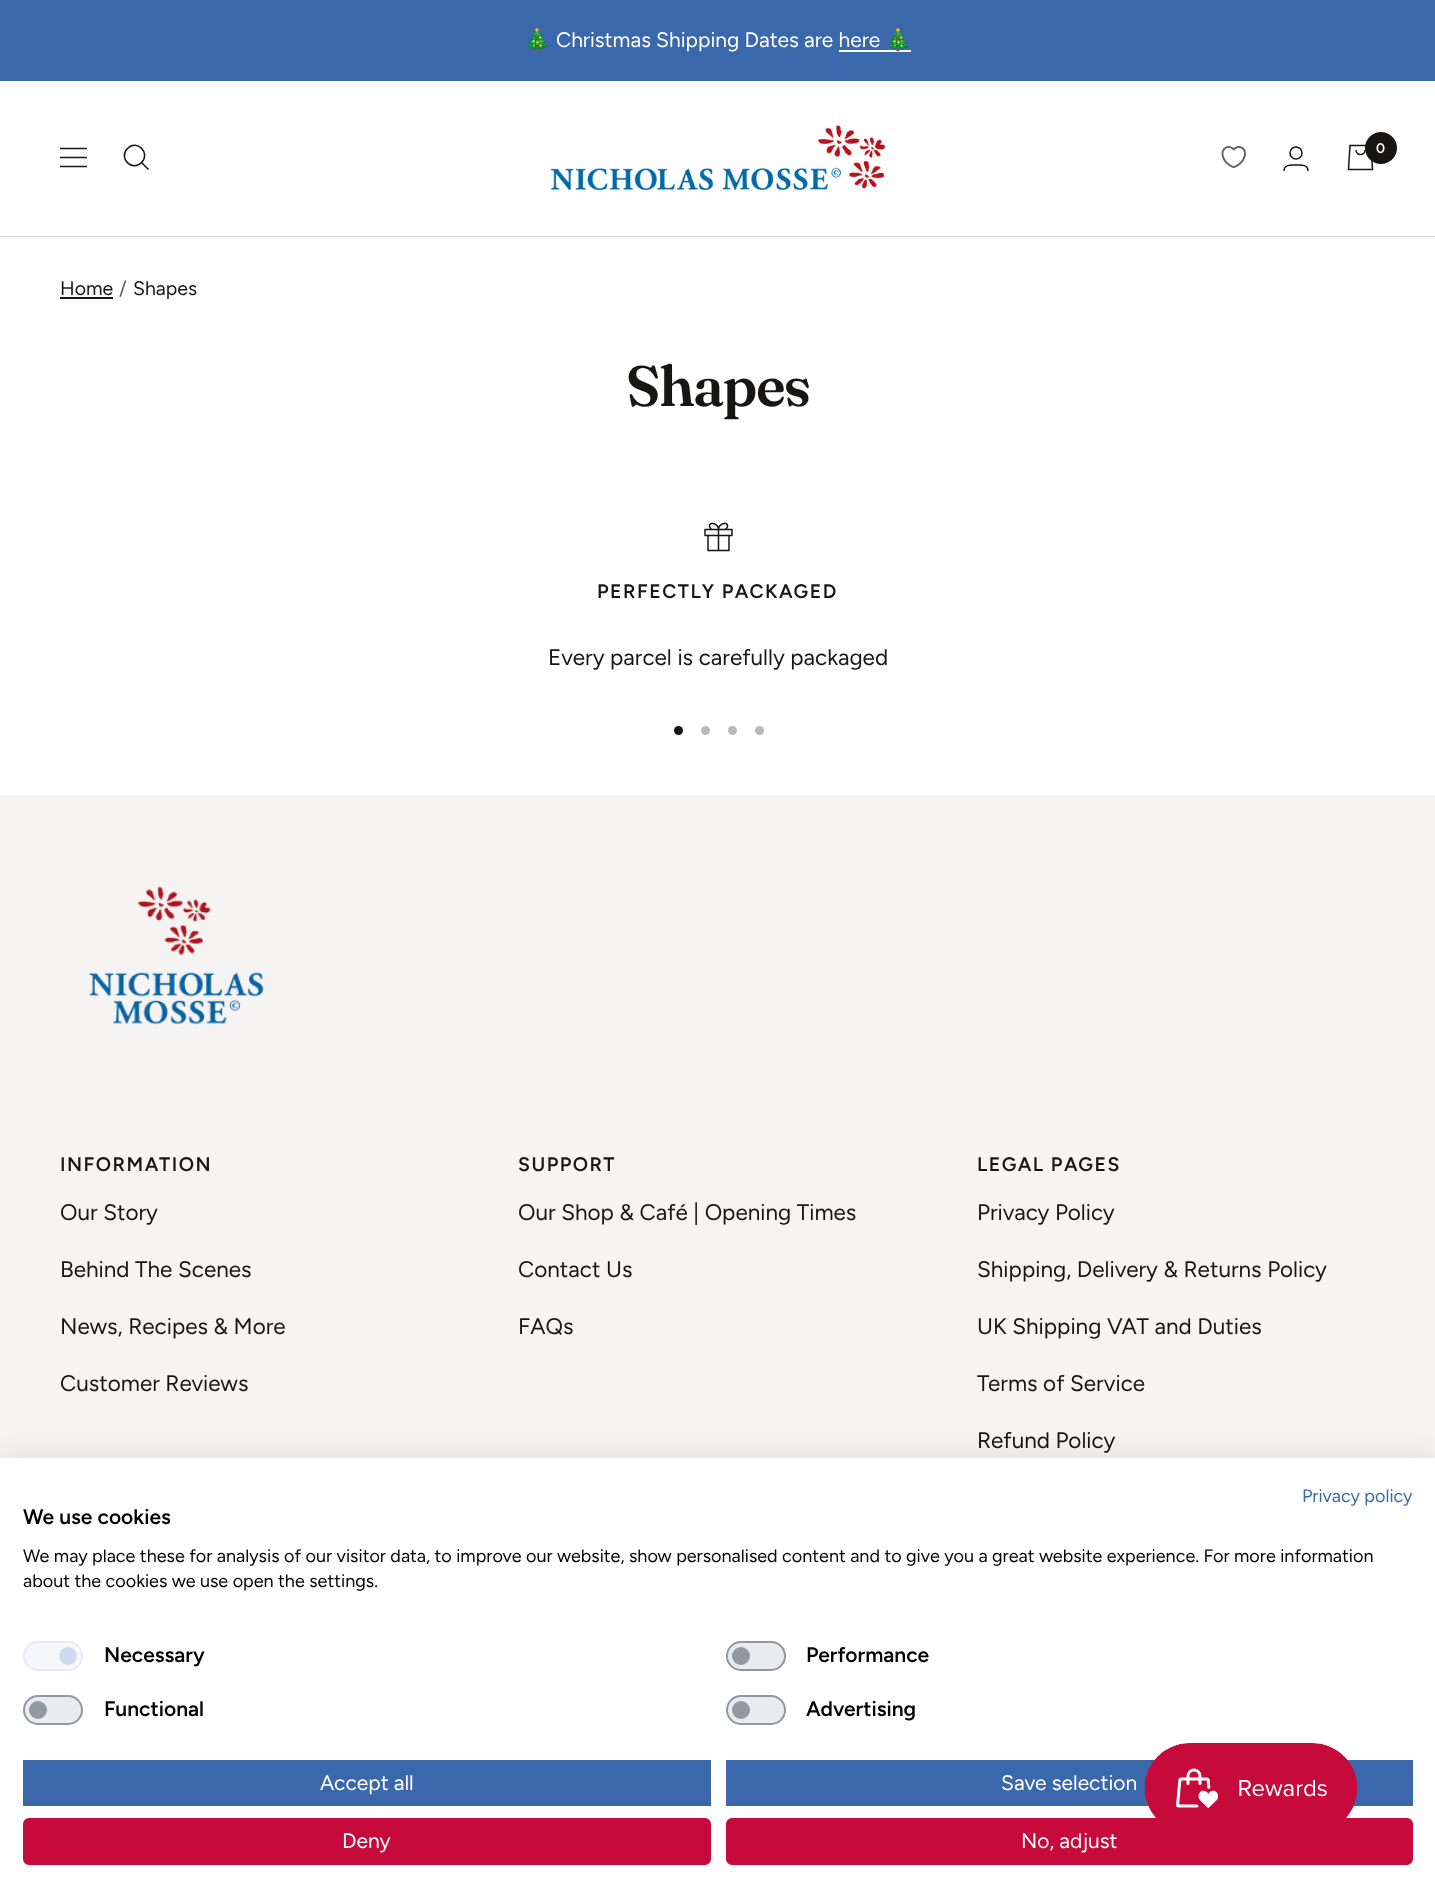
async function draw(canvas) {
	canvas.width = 1435;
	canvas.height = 1904;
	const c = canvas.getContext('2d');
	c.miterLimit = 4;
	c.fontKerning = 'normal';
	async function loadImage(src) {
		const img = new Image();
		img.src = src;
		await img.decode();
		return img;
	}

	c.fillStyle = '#fff';
	c.fillRect(0, 0, 1435, 1904);
	c.fillStyle = '#3b68aa';
	c.fillRect(0, 0, 1435, 81);
	c.font = '21px Noto Color Emoji';
	c.fillStyle = '#fff';
	c.fillText('🎄', 524, 47);
	c.font = '21px Figtree';
	c.fillText('Christmas Shipping Dates are here', 556, 47);
	c.fillRect(839, 50, 72, 2);
	c.font = '21px Noto Color Emoji';
	c.fillText('🎄', 885, 47);
	c.fillStyle = '#dcdcdc';
	c.beginPath();
	c.moveTo(0, 236);
	c.lineTo(0, 237);
	c.lineTo(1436, 237);
	c.lineTo(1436, 83);
	c.lineTo(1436, 236);
	c.closePath();
	c.fill();
	c.beginPath();
	c.moveTo(60, 148.5);
	c.lineTo(87, 148.5);
	c.moveTo(60, 166.5);
	c.lineTo(87, 166.5);
	c.closePath();
	c.moveTo(60, 157.5);
	c.lineTo(87, 157.5);
	c.closePath();
	c.strokeStyle = '#181515';
	c.lineWidth = 1.5;
	c.stroke();
	c.beginPath();
	c.moveTo(141.5, 162.5);
	c.bezierCurveTo(151, 153, 137, 139, 127.5, 148.5);
	c.bezierCurveTo(118, 158, 132, 172, 141.5, 162.5);
	c.closePath();
	c.moveTo(141.5, 162.5);
	c.lineTo(148.5, 169.5);
	c.stroke();
	c.drawImage(await loadImage('img1.png'), 550, 125, 336, 66);
	c.drawImage(await loadImage('img2.png'), 1221, 146, 25, 22);
	c.beginPath();
	c.arc(1296, 153, 6, 0, 2 * Math.PI);
	c.stroke();
	c.beginPath();
	c.moveTo(1284, 171);
	c.bezierCurveTo(1284, 164, 1291.5, 165, 1296, 165);
	c.bezierCurveTo(1300.5, 165, 1308, 164, 1308, 171);
	c.stroke();
	c.beginPath();
	c.moveTo(1350, 145.5);
	c.lineTo(1371, 145.5);
	c.lineTo(1372.5, 169.5);
	c.lineTo(1348.5, 169.5);
	c.closePath();
	c.moveTo(1356, 150);
	c.bezierCurveTo(1356, 156, 1365, 156, 1365, 150);
	c.stroke();
	c.fillStyle = '#181515';
	c.beginPath();
	c.arc(1381, 148, 16, 0, 2 * Math.PI);
	c.fill();
	c.font = '600 14px Figtree';
	c.fillStyle = '#fff';
	c.fillText('0', 1376, 153);
	c.font = '19.5px Figtree';
	c.fillStyle = '#181515';
	c.fillText('Home', 60, 295);
	c.fillRect(60, 297, 53, 2);
	c.fillStyle = '#5d5b5b';
	c.fillText('/', 119, 295);
	c.fillStyle = '#181515';
	c.fillText('Shapes', 133, 295);
	c.letterSpacing = '-1.5px';
	c.font = '600 57px Fraunces';
	c.fillText('Shapes', 626, 406);
	c.drawImage(await loadImage('img3.png'), 704, 522, 29, 30);
	c.letterSpacing = '1.5px';
	c.font = '600 19.5px Figtree';
	c.fillText('PERFECTLY PACKAGED', 597, 598);
	c.letterSpacing = '0px';
	c.font = '22.5px Figtree';
	c.fillText('Every parcel is carefully packaged', 548, 665);
	c.beginPath();
	c.arc(678.5, 730.5, 4.5, 0, 2 * Math.PI);
	c.fill();
	c.fillStyle = '#bab9b9';
	c.beginPath();
	c.arc(705.5, 730.5, 4.5, 0, 2 * Math.PI);
	c.fill();
	c.beginPath();
	c.arc(732.5, 730.5, 4.5, 0, 2 * Math.PI);
	c.fill();
	c.beginPath();
	c.arc(759.5, 730.5, 4.5, 0, 2 * Math.PI);
	c.fill();
	c.fillStyle = '#f6f4f2';
	c.fillRect(0, 795, 1435, 663);
	c.drawImage(await loadImage('img4.png'), 89, 886, 175, 139);
	c.letterSpacing = '1.5px';
	c.font = '600 19.5px Figtree';
	c.fillStyle = '#181515';
	c.fillText('INFORMATION', 60, 1171);
	c.letterSpacing = '0px';
	c.font = '22.5px Figtree';
	for (const [text, x, y] of [
		['Our Story', 60, 1220],
		['Behind The Scenes', 60, 1277],
		['News, Recipes & More', 60, 1334],
		['Customer Reviews', 60, 1391],
	]) {
		c.fillText(text, x, y);
	}
	c.letterSpacing = '1.5px';
	c.font = '600 19.5px Figtree';
	c.fillText('SUPPORT', 518, 1171);
	c.letterSpacing = '0px';
	c.font = '22.5px Figtree';
	for (const [text, x, y] of [
		['Our Shop & Café | Opening Times', 518, 1220],
		['Contact Us', 518, 1277],
		['FAQs', 518, 1334],
	]) {
		c.fillText(text, x, y);
	}
	c.letterSpacing = '1.5px';
	c.font = '600 19.5px Figtree';
	c.fillText('LEGAL PAGES', 977, 1171);
	c.letterSpacing = '0px';
	c.font = '22.5px Figtree';
	for (const [text, x, y] of [
		['Privacy Policy', 977, 1220],
		['Shipping, Delivery & Returns Policy', 977, 1277],
		['UK Shipping VAT and Duties', 977, 1334],
		['Terms of Service', 977, 1391],
		['Refund Policy', 977, 1448],
	]) {
		c.fillText(text, x, y);
	}
	c.fillStyle = '#0000001a';
	c.filter = 'blur(18px)';
	c.beginPath();
	c.rect(0, 1458, 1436, 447);
	c.fill();
	c.filter = 'none';
	c.fillStyle = '#fff';
	c.fillRect(0, 1458, 1435, 446);
	c.font = '18px Figtree';
	c.fillStyle = '#3b68aa';
	c.fillText('Privacy policy', 1302, 1502);
	c.font = '600 21px Figtree';
	c.fillStyle = '#000';
	c.fillText('We use cookies', 23, 1524);
	c.font = '18px Figtree';
	c.fillText('We may place these for analysis of our visitor data, to improve our website, show personalised content and to give you a great website experience. For more information', 23, 1562);
	c.fillText('about the cookies we use open the settings.', 23, 1587);
	c.fillStyle = '#f5f7fb';
	c.beginPath();
	c.roundRect(23, 1641, 60, 30, 15);
	c.fill();
	c.fillStyle = '#ced9ea';
	c.beginPath();
	c.arc(68, 1656, 9, 0, 2 * Math.PI);
	c.fill();
	c.beginPath();
	c.roundRect(24, 1642, 58, 28, 14);
	c.strokeStyle = '#e7ecf4';
	c.lineWidth = 2;
	c.stroke();
	c.font = '600 21px Figtree';
	c.fillStyle = '#000';
	c.fillText('Necessary', 104, 1662);
	c.fillStyle = '#e9ecef';
	c.beginPath();
	c.roundRect(726, 1641, 60, 30, 15);
	c.fill();
	c.fillStyle = '#92999f';
	c.beginPath();
	c.arc(741, 1656, 9, 0, 2 * Math.PI);
	c.fill();
	c.beginPath();
	c.roundRect(727, 1642, 58, 28, 14);
	c.strokeStyle = '#6c757db3';
	c.stroke();
	c.fillStyle = '#000';
	c.fillText('Performance', 806, 1662);
	c.fillStyle = '#e9ecef';
	c.beginPath();
	c.roundRect(23, 1695, 60, 30, 15);
	c.fill();
	c.fillStyle = '#92999f';
	c.beginPath();
	c.arc(38, 1710, 9, 0, 2 * Math.PI);
	c.fill();
	c.beginPath();
	c.roundRect(24, 1696, 58, 28, 14);
	c.stroke();
	c.fillStyle = '#000';
	c.fillText('Functional', 104, 1716);
	c.fillStyle = '#e9ecef';
	c.beginPath();
	c.roundRect(726, 1695, 60, 30, 15);
	c.fill();
	c.fillStyle = '#92999f';
	c.beginPath();
	c.arc(741, 1710, 9, 0, 2 * Math.PI);
	c.fill();
	c.beginPath();
	c.roundRect(727, 1696, 58, 28, 14);
	c.stroke();
	c.fillStyle = '#000';
	c.fillText('Advertising', 806, 1716);
	c.fillStyle = '#3b68aa';
	c.fillRect(23, 1760, 688, 46);
	c.font = '21px Figtree';
	c.fillStyle = '#fff';
	c.fillText('Accept all', 320, 1790);
	c.fillStyle = '#3b68aa';
	c.fillRect(726, 1760, 687, 46);
	c.fillStyle = '#fff';
	c.fillText('Save selection', 1001, 1790);
	c.fillStyle = '#c70a3c';
	c.beginPath();
	c.roundRect(24, 1819, 686, 45, 5);
	c.fill();
	c.strokeStyle = '#c70a3c';
	c.stroke();
	c.fillStyle = '#fff';
	c.fillText('Deny', 342, 1848);
	c.fillStyle = '#c70a3c';
	c.beginPath();
	c.roundRect(727, 1819, 685, 45, 5);
	c.fill();
	c.stroke();
	c.fillStyle = '#fff';
	c.fillText('No, adjust', 1021, 1848);
	c.drawImage(await loadImage('img5.png'), 1144, 1743, 214, 75);
}

draw(document.querySelector('canvas'));
